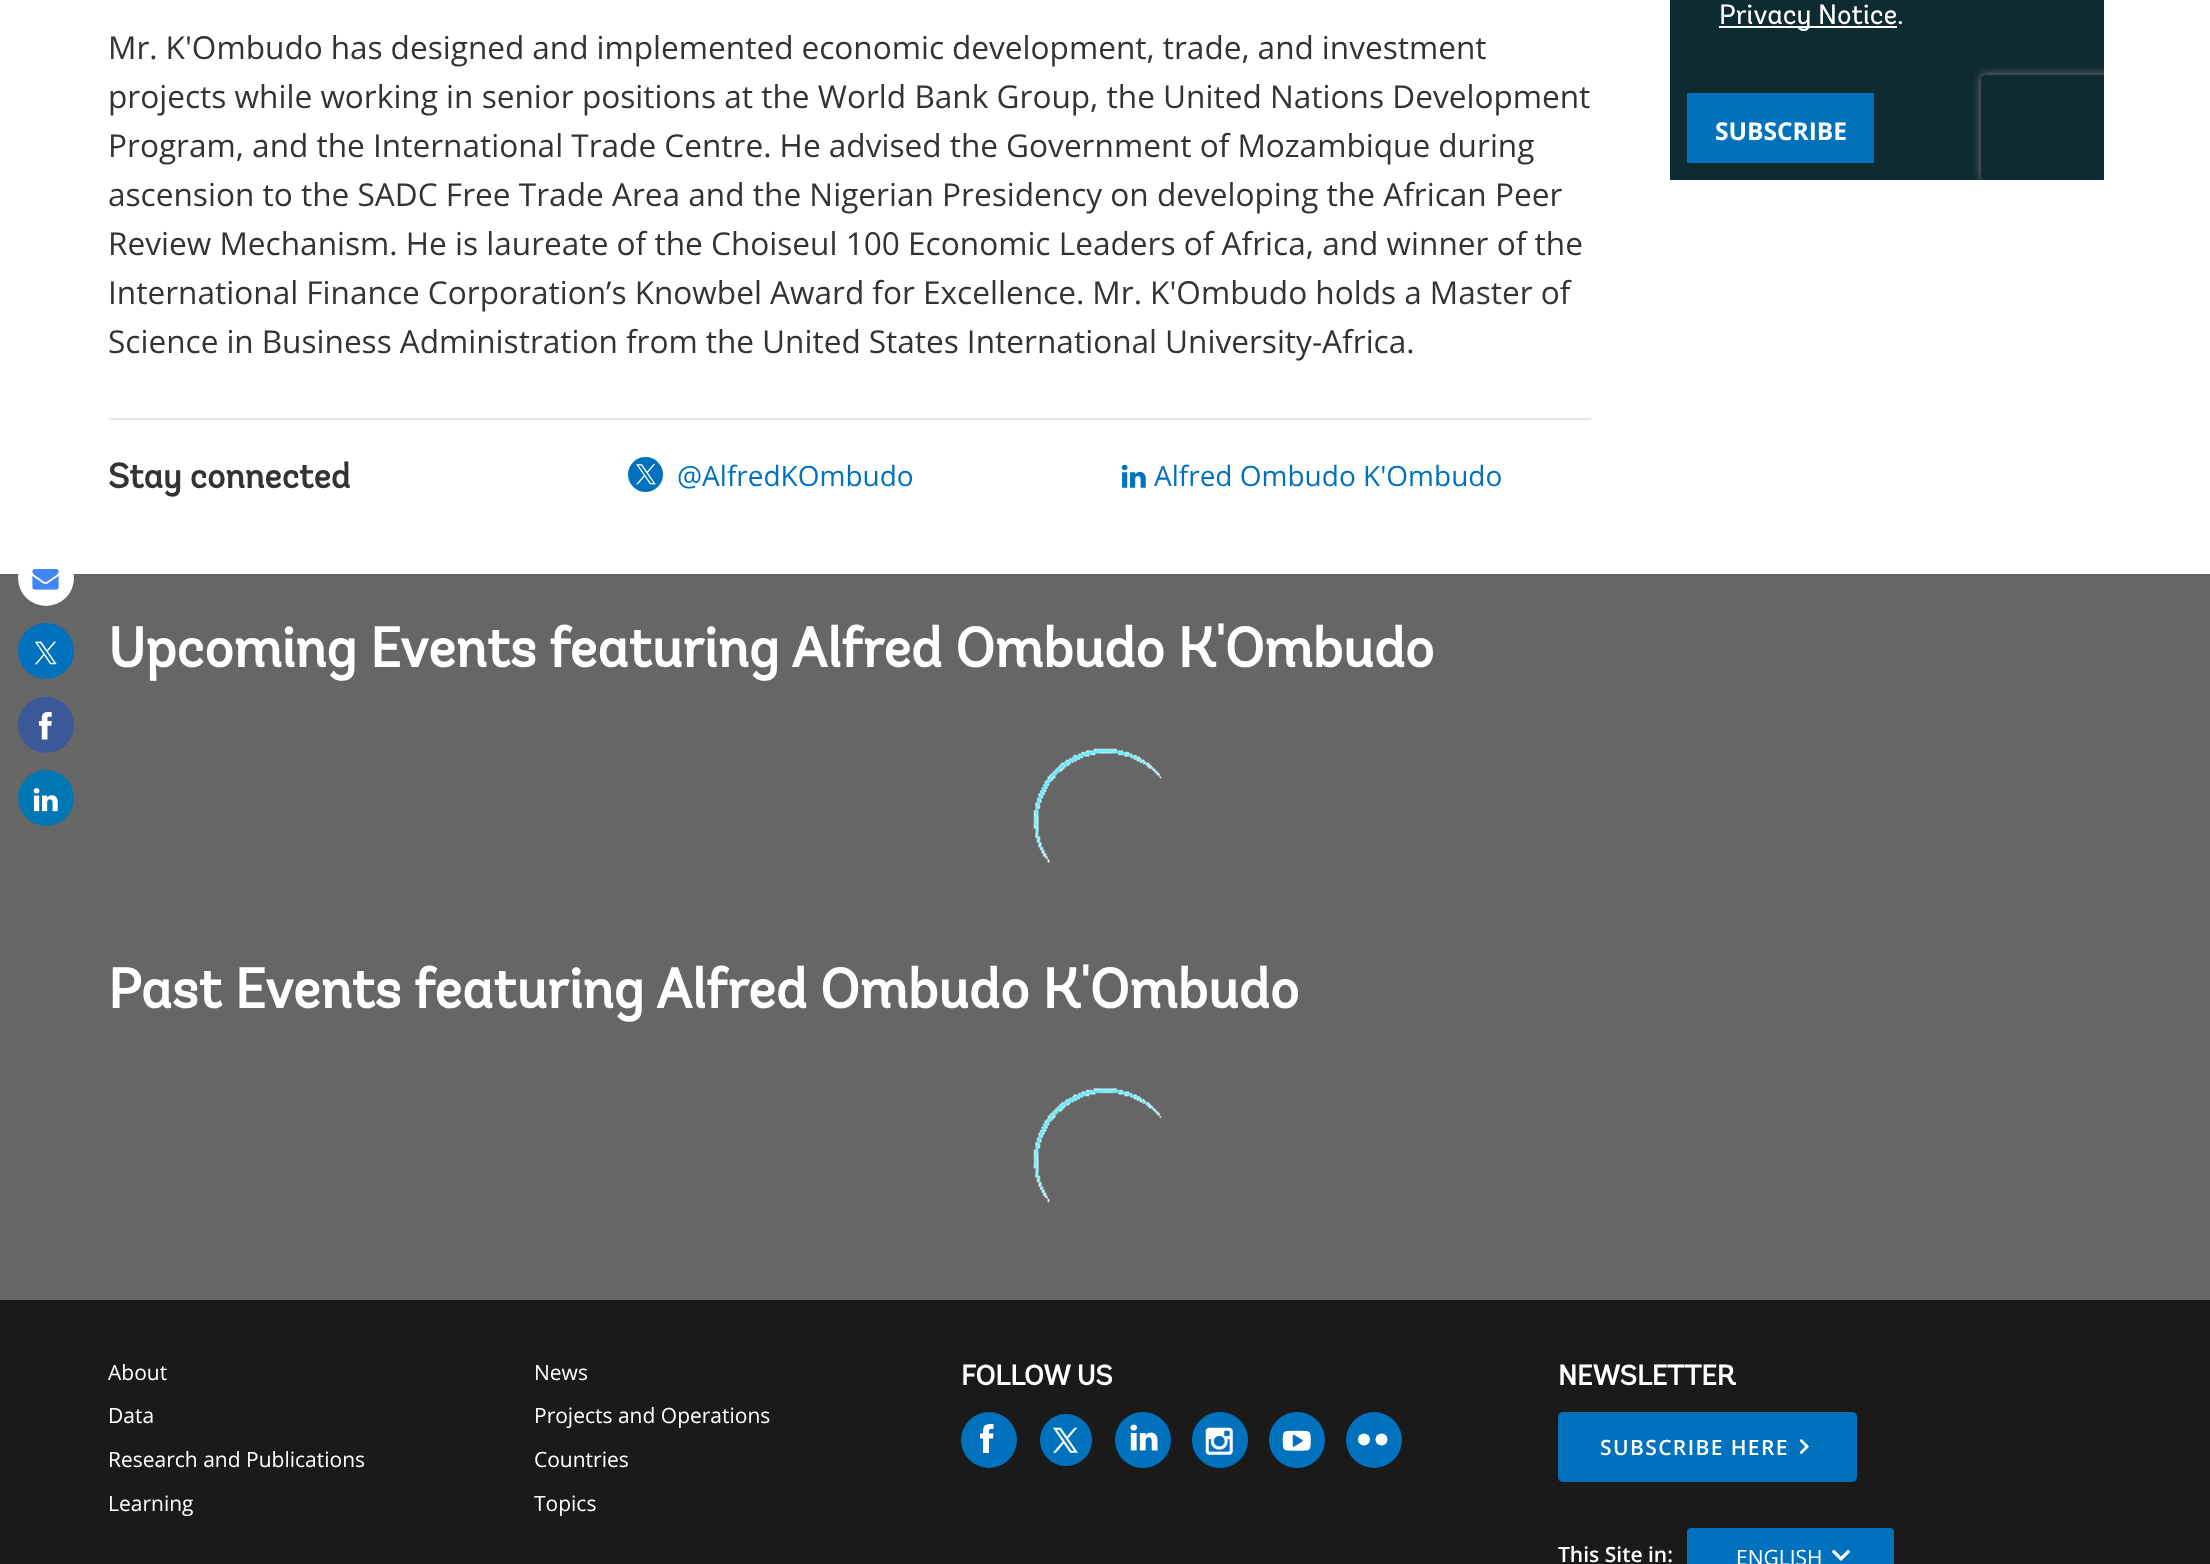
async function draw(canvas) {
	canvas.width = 2210;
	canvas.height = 1564;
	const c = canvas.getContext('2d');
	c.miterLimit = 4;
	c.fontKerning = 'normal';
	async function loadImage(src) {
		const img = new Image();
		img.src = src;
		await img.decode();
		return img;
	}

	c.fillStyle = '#fff';
	c.fillRect(0, 0, 2210, 1564);
	c.fillStyle = '#666';
	c.fillRect(0, 574, 2210, 726);
	c.fillStyle = '#fff';
	c.beginPath();
	c.arc(46, 578, 28, 0, 2 * Math.PI);
	c.fill();
	c.drawImage(await loadImage('img1.png'), 32, 569, 27, 21);
	c.fillStyle = '#0071bc';
	c.beginPath();
	c.arc(46, 651, 28, 0, 2 * Math.PI);
	c.fill();
	c.drawImage(await loadImage('img2.png'), 34, 641, 23, 24);
	c.fillStyle = '#3b5998';
	c.beginPath();
	c.arc(46, 725, 28, 0, 2 * Math.PI);
	c.fill();
	c.drawImage(await loadImage('img3.png'), 38, 712, 14, 28);
	c.fillStyle = '#0077b5';
	c.beginPath();
	c.arc(46, 798, 28, 0, 2 * Math.PI);
	c.fill();
	c.drawImage(await loadImage('img4.png'), 33, 788, 25, 24);
	c.wordSpacing = '-0.25px';
	c.font = '31.6px Open Sans';
	c.fillStyle = '#333';
	c.fillText('Mr. K\'Ombudo has designed and implemented economic development, trade, and investment', 108, 59);
	c.wordSpacing = '0px';
	c.fillText('projects while working in senior positions at the World Bank Group, the United Nations Development', 108, 108);
	c.wordSpacing = '-0.1px';
	c.fillText('Program, and the International Trade Centre. He advised the Government of Mozambique during', 108, 157);
	c.wordSpacing = '0px';
	c.fillText('ascension to the SADC Free Trade Area and the Nigerian Presidency on developing the African Peer', 108, 206);
	c.fillText('Review Mechanism. He is laureate of the Choiseul 100 Economic Leaders of Africa, and winner of the', 108, 255);
	c.wordSpacing = '-0.1px';
	c.fillText('International Finance Corporation’s Knowbel Award for Excellence. Mr. K\'Ombudo holds a Master of', 108, 304);
	c.wordSpacing = '-0.25px';
	c.fillText('Science in Business Administration from the United States International University-Africa.', 108, 353);
	c.fillStyle = '#e5e5e5';
	c.fillRect(109, 418, 1482, 2);
	c.wordSpacing = '0px';
	c.font = 'bold 35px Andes';
	c.fillStyle = '#333';
	c.fillText('Stay connected', 108, 488);
	c.fillStyle = '#0071bc';
	c.beginPath();
	c.arc(645.5, 474.5, 17.5, 0, 2 * Math.PI);
	c.fill();
	c.drawImage(await loadImage('img5.png'), 636, 464, 20, 21);
	c.font = '28px Open Sans';
	c.fillText('@AlfredKOmbudo', 677, 486);
	c.drawImage(await loadImage('img6.png'), 1121, 464, 25, 24);
	c.fillText('Alfred Ombudo K\'Ombudo', 1154, 486);
	c.fillStyle = '#0f2b32';
	c.fillRect(1670, 0, 434, 180);
	c.fillStyle = '#fff';
	c.fillRect(1719, 26, 178, 2);
	c.font = '28px Andes';
	c.fillText('Privacy Notice', 1719, 24);
	c.fillText('.', 1897, 24);
	c.fillStyle = '#0271bc';
	c.fillRect(1687, 93, 187, 70);
	c.font = 'bold 24.5px Open Sans';
	c.fillStyle = '#fff';
	c.fillText('SUBSCRIBE', 1715, 140);
	c.save();
	c.beginPath();
	c.rect(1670, 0, 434, 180);
	c.clip();
	c.beginPath();
	c.moveTo(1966, 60);
	c.lineTo(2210, 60);
	c.lineTo(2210, 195);
	c.lineTo(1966, 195);
	c.closePath();
	c.moveTo(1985, 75);
	c.lineTo(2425, 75);
	c.bezierCurveTo(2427, 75, 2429, 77, 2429, 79);
	c.lineTo(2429, 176);
	c.bezierCurveTo(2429, 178, 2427, 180, 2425, 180);
	c.lineTo(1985, 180);
	c.bezierCurveTo(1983, 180, 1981, 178, 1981, 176);
	c.lineTo(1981, 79);
	c.bezierCurveTo(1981, 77, 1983, 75, 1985, 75);
	c.closePath();
	c.clip('evenodd');
	c.fillStyle = '#808080';
	c.filter = 'blur(4.5px)';
	c.beginPath();
	c.roundRect(1981, 75, 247, 105, 4);
	c.fill();
	c.filter = 'none';
	c.restore();
	c.font = 'bold 56px Andes';
	c.fillText('Upcoming Events featuring Alfred Ombudo K\'Ombudo', 108, 667);
	c.drawImage(await loadImage('img7.png'), 1033, 748, 129, 115);
	c.fillText('Past Events featuring Alfred Ombudo K\'Ombudo', 108, 1008);
	c.drawImage(await loadImage('img8.png'), 1033, 1088, 129, 115);
	c.fillStyle = '#1a1a1a';
	c.fillRect(0, 1300, 2210, 264);
	c.font = '21px Open Sans';
	c.fillStyle = '#fff';
	for (const [text, x, y] of [
		['About', 108, 1380],
		['Data', 108, 1423],
		['Research and Publications', 108, 1467],
		['Learning', 108, 1511],
		['News', 534, 1380],
		['Projects and Operations', 534, 1423],
		['Countries', 534, 1467],
		['Topics', 534, 1511],
	]) {
		c.fillText(text, x, y);
	}
	c.font = 'bold 28px Andes';
	c.fillText('FOLLOW US', 961, 1385);
	c.fillStyle = '#0071bc';
	c.beginPath();
	c.arc(989, 1440, 28, 0, 2 * Math.PI);
	c.fill();
	c.fillStyle = '#fff';
	c.beginPath();
	c.moveTo(989, 1433.5);
	c.lineTo(993.5, 1433.5);
	c.lineTo(993, 1438.5);
	c.lineTo(989, 1438.5);
	c.lineTo(989, 1453);
	c.lineTo(983, 1453);
	c.lineTo(983, 1438.5);
	c.lineTo(980, 1438.5);
	c.lineTo(980, 1433.5);
	c.lineTo(983, 1433.5);
	c.bezierCurveTo(983, 1424.5, 984.5, 1424, 993.5, 1424);
	c.lineTo(993.5, 1429);
	c.bezierCurveTo(988.5, 1429, 989, 1429, 989, 1433.5);
	c.closePath();
	c.fill('evenodd');
	c.drawImage(await loadImage('img9.png'), 1040, 1414, 52, 52);
	c.drawImage(await loadImage('img10.png'), 1115, 1412, 56, 56);
	c.drawImage(await loadImage('img11.png'), 1192, 1412, 56, 56);
	c.drawImage(await loadImage('img12.png'), 1269, 1412, 56, 56);
	c.fillStyle = '#0071bc';
	c.beginPath();
	c.arc(1374, 1440, 28, 0, 2 * Math.PI);
	c.fill();
	c.fillStyle = '#fff';
	c.beginPath();
	c.arc(1364, 1439.5, 6, 0, 2 * Math.PI);
	c.fill();
	c.beginPath();
	c.arc(1381.5, 1439.5, 6, 0, 2 * Math.PI);
	c.fill();
	c.fillText('NEWSLETTER', 1558, 1385);
	c.fillStyle = '#0071bc';
	c.beginPath();
	c.roundRect(1558, 1412, 299, 70, 5);
	c.fill();
	c.letterSpacing = '1.4px';
	c.font = '600 21px Open Sans';
	c.fillStyle = '#fff';
	c.fillText('SUBSCRIBE HERE', 1600, 1455);
	c.drawImage(await loadImage('img13.png'), 1799, 1439, 10, 15);
	c.letterSpacing = '0px';
	c.fillText('This Site in:', 1558, 1562);
	c.fillStyle = '#0071bc';
	c.beginPath();
	c.roundRect(1687, 1528, 207, 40, 4);
	c.fill();
	c.font = '21px Open Sans';
	c.fillStyle = '#fff';
	c.fillText('ENGLISH', 1736, 1565);
	c.drawImage(await loadImage('img14.png'), 1832, 1549, 18, 12);
}

draw(document.querySelector('canvas'));
